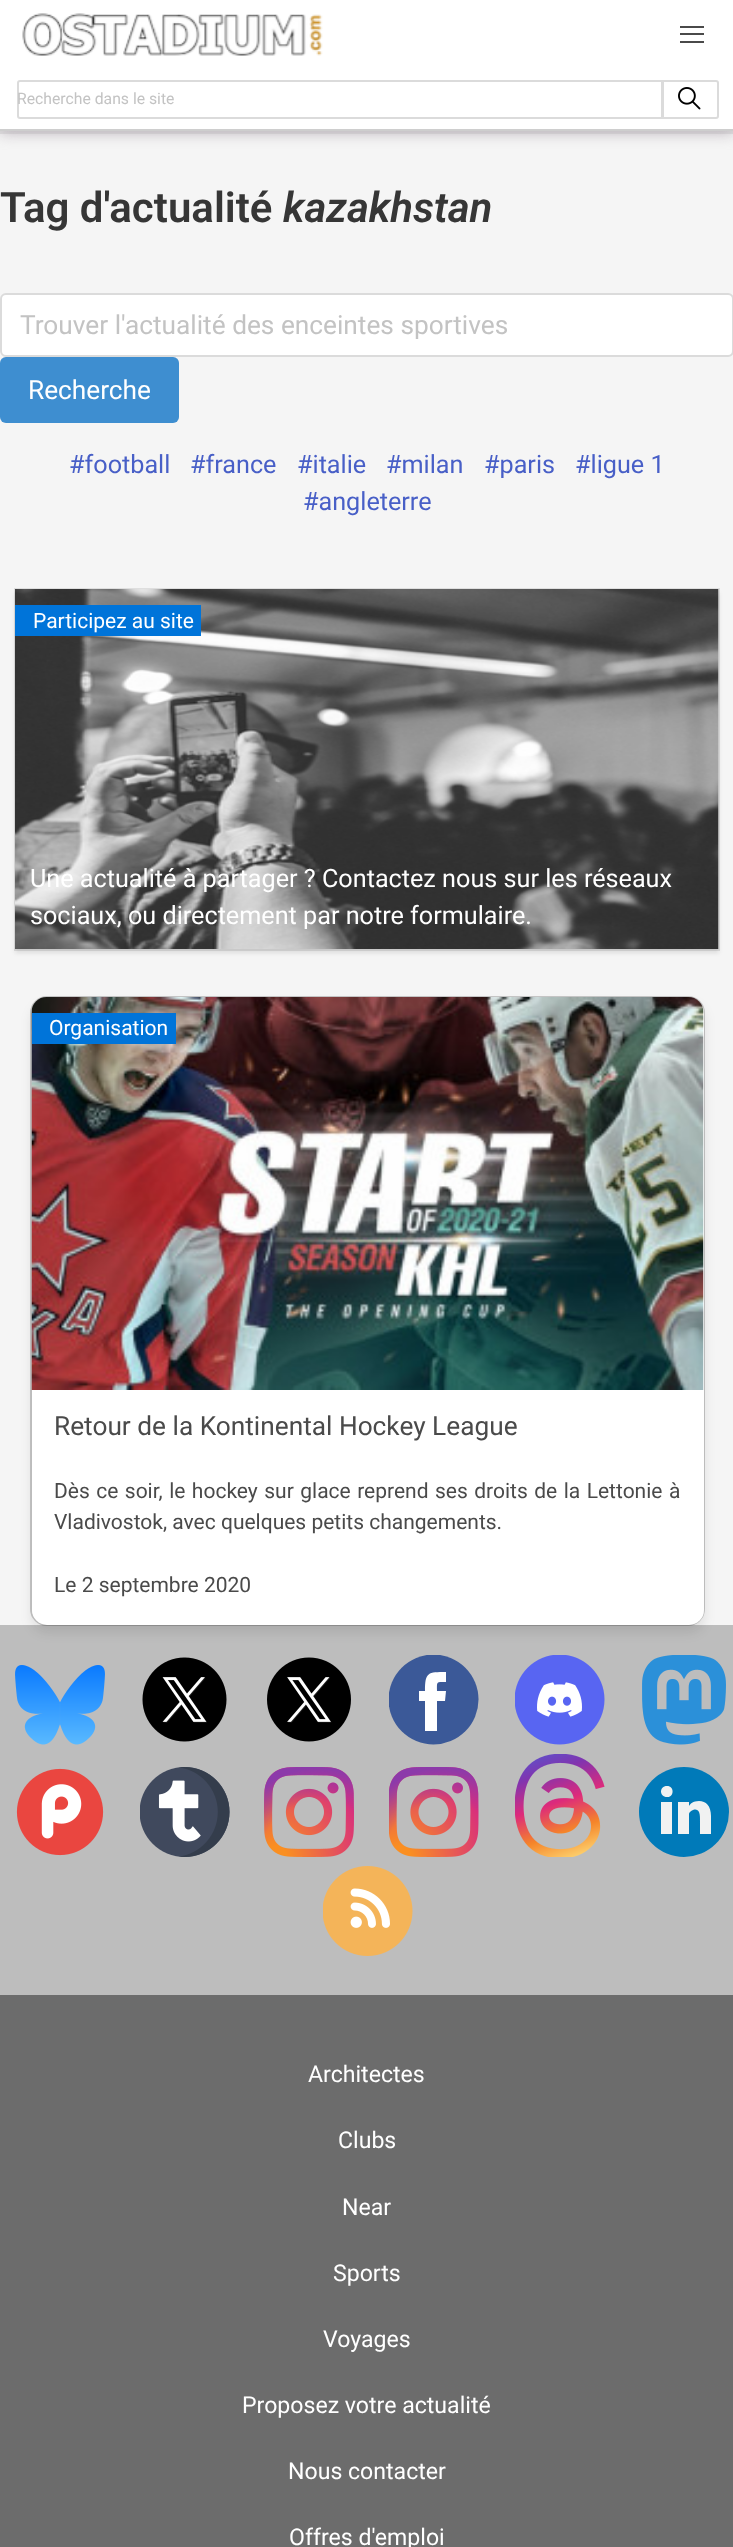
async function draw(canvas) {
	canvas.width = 733;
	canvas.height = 2547;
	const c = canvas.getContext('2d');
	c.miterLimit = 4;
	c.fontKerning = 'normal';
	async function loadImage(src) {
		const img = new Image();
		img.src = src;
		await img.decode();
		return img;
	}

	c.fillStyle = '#f5f5f5';
	c.fillRect(0, 0, 733, 2547);
	c.fillStyle = '#e1e1e1';
	c.fillRect(0, 131, 733, 3);
	c.fillStyle = '#b5acb5';
	c.filter = 'blur(7.5px)';
	c.beginPath();
	c.rect(0, 2, 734, 130);
	c.fill();
	c.filter = 'none';
	c.fillStyle = '#fff';
	c.fillRect(0, 0, 733, 129);
	c.fillStyle = '#cecece';
	c.fillRect(0, 129, 733, 2);
	c.drawImage(await loadImage('img1.png'), 22, 13, 301, 43);
	for (const [x, y, w, h, color] of [
		[680, 26, 24, 2, '#4a4a4a'],
		[680, 33, 24, 2, '#4a4a4a'],
		[680, 41, 24, 2, '#4a4a4a'],
	]) {
		c.fillStyle = color;
		c.fillRect(x, y, w, h);
	}
	c.beginPath();
	c.roundRect(18, 81, 644, 37, [2, 0, 0, 2]);
	c.strokeStyle = '#dbdbdb';
	c.lineWidth = 2;
	c.stroke();
	c.font = '15.75px Roboto';
	c.fillStyle = '#c3c3c3';
	c.fillText('Recherche dans le site', 17, 104);
	c.fillStyle = '#fff';
	c.beginPath();
	c.roundRect(663, 81, 55, 37, [0, 2, 2, 0]);
	c.fill();
	c.stroke();
	c.drawImage(await loadImage('img2.png'), 678, 87, 23, 23);
	c.font = '600 42px Roboto';
	c.fillStyle = '#363636';
	c.fillText('Tag d\'actualité', 0, 222);
	c.font = 'italic 600 42px Roboto';
	c.fillText('kazakhstan', 283, 222);
	c.fillStyle = '#fff';
	c.beginPath();
	c.roundRect(1, 294, 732, 62, 5);
	c.fill();
	c.stroke();
	c.save();
	c.beginPath();
	c.rect(20, 309, 694, 30);
	c.clip();
	c.font = '26.25px Roboto';
	c.fillStyle = '#c3c3c3';
	c.fillText('Trouver l\'actualité des enceintes sportives', 20, 334);
	c.restore();
	c.fillStyle = '#3e8ed0';
	c.beginPath();
	c.roundRect(0, 357, 179, 66, 6);
	c.fill();
	c.font = '26.25px Roboto';
	c.fillStyle = '#fff';
	c.fillText('Recherche', 28, 399);
	c.font = '25.2px Roboto';
	c.fillStyle = '#485fc7';
	for (const [text, x, y] of [
		['#football', 69, 473],
		['#france', 190, 473],
		['#italie', 297, 473],
		['#milan', 386, 473],
		['#paris', 484, 473],
		['#ligue 1', 575, 473],
		['#angleterre', 303, 510],
	]) {
		c.fillText(text, x, y);
	}
	c.strokeStyle = '#dedede';
	c.strokeRect(15, 589, 704, 361);
	c.fillStyle = '#0a0a0a1a';
	c.filter = 'blur(2px)';
	c.beginPath();
	c.rect(15, 593, 704, 360);
	c.fill();
	c.filter = 'none';
	c.drawImage(await loadImage('img3.png'), 15, 589, 704, 360);
	c.fillStyle = '#0074d9';
	c.fillRect(15, 605, 186, 31);
	c.font = '21px Roboto';
	c.fillStyle = '#fff';
	c.fillText('Participez au site', 33, 628);
	c.font = '25.2px Roboto';
	c.fillText('Une actualité à partager ? Contactez nous sur les réseaux', 30, 887);
	c.fillText('sociaux, ou directement par notre formulaire.', 30, 924);
	c.fillStyle = '#bdbdbd';
	c.fillRect(0, 1625, 733, 370);
	c.beginPath();
	c.roundRect(31, 997, 673, 628, 16);
	c.strokeStyle = '#0a0a0a33';
	c.stroke();
	c.fillStyle = '#0a0a0a1a';
	c.filter = 'blur(6px)';
	c.beginPath();
	c.roundRect(32, 1005, 672, 627, 15);
	c.fill();
	c.filter = 'none';
	c.fillStyle = '#fff';
	c.beginPath();
	c.roundRect(32, 998, 672, 627, 15);
	c.fill();
	c.drawImage(await loadImage('img4.png'), 31, 997, 673, 393);
	c.fillStyle = '#0074d9';
	c.fillRect(32, 1013, 144, 31);
	c.font = '21px Roboto';
	c.fillStyle = '#fff';
	c.fillText('Organisation', 49, 1035);
	c.font = '26.25px Roboto';
	c.fillStyle = '#4a4a4a';
	c.fillText('Retour de la Kontinental Hockey League', 54, 1435);
	c.wordSpacing = '1.25px';
	c.font = '21px Roboto';
	c.fillText('Dès ce soir, le hockey sur glace reprend ses droits de la Lettonie à', 54, 1498);
	c.wordSpacing = '0px';
	c.fillText('Vladivostok, avec quelques petits changements.', 54, 1529);
	c.fillText('Le 2 septembre 2020', 54, 1592);
	c.drawImage(await loadImage('img5.png'), 15, 1665, 90, 80);
	c.drawImage(await loadImage('img6.png'), 142, 1657, 85, 85);
	c.drawImage(await loadImage('img7.png'), 267, 1657, 84, 85);
	c.save();
	c.beginPath();
	c.rect(389, 1655, 90, 90);
	c.clip();
	c.fillStyle = '#3b5998';
	c.beginPath();
	c.arc(433.5, 1699.5, 45, 0, 2 * Math.PI);
	c.fill();
	c.restore();
	c.drawImage(await loadImage('img8.png'), 515, 1655, 90, 90);
	c.drawImage(await loadImage('img9.png'), 642, 1655, 84, 90);
	c.fillStyle = '#fff';
	c.beginPath();
	c.moveTo(445, 1701);
	c.lineTo(437, 1701);
	c.lineTo(437, 1731);
	c.lineTo(425, 1731);
	c.lineTo(425, 1701);
	c.lineTo(419, 1701);
	c.lineTo(419, 1691);
	c.lineTo(425, 1691);
	c.bezierCurveTo(425, 1672, 428, 1672, 446, 1672);
	c.lineTo(446, 1682);
	c.bezierCurveTo(436, 1682, 437, 1681, 437, 1691);
	c.lineTo(446, 1691);
	c.closePath();
	c.fill();
	c.drawImage(await loadImage('img10.png'), 16, 1768, 88, 88);
	c.drawImage(await loadImage('img11.png'), 140, 1767, 90, 90);
	c.drawImage(await loadImage('img12.png'), 264, 1767, 90, 90);
	c.drawImage(await loadImage('img13.png'), 389, 1767, 90, 90);
	c.drawImage(await loadImage('img14.png'), 515, 1754, 90, 103);
	c.fillStyle = '#007ab9';
	c.beginPath();
	c.arc(684, 1812, 45, 0, 2 * Math.PI);
	c.fill();
	c.fillStyle = '#f1f2f2';
	c.beginPath();
	c.moveTo(711, 1816);
	c.lineTo(711, 1834);
	c.lineTo(700, 1834);
	c.lineTo(700, 1823);
	c.bezierCurveTo(700, 1818, 701, 1807, 693, 1810);
	c.bezierCurveTo(691, 1811, 689, 1812, 689, 1814);
	c.lineTo(689, 1834);
	c.lineTo(678, 1834);
	c.lineTo(678, 1802);
	c.lineTo(689, 1802);
	c.lineTo(689, 1806);
	c.bezierCurveTo(690, 1804, 693, 1801, 699, 1801);
	c.bezierCurveTo(706, 1801, 711, 1806, 711, 1816);
	c.closePath();
	c.moveTo(667, 1786);
	c.bezierCurveTo(659, 1786, 659, 1797, 667, 1797);
	c.bezierCurveTo(674, 1798, 675, 1786, 667, 1786);
	c.closePath();
	c.moveTo(661, 1834);
	c.lineTo(672, 1834);
	c.lineTo(672, 1802);
	c.lineTo(661, 1802);
	c.closePath();
	c.fill();
	c.drawImage(await loadImage('img15.png'), 323, 1866, 90, 90);
	c.fillStyle = '#6c6c6c';
	c.fillRect(0, 1995, 733, 552);
	c.font = '23.1px Roboto';
	c.fillStyle = '#fff';
	for (const [text, x, y] of [
		['Architectes', 308, 2082],
		['Clubs', 338, 2148],
		['Near', 342, 2215],
		['Sports', 333, 2281],
		['Voyages', 323, 2347],
		['Proposez votre actualité', 242, 2413],
		['Nous contacter', 288, 2479],
		['Offres d\'emploi', 289, 2545],
	]) {
		c.fillText(text, x, y);
	}
}

draw(document.querySelector('canvas'));
